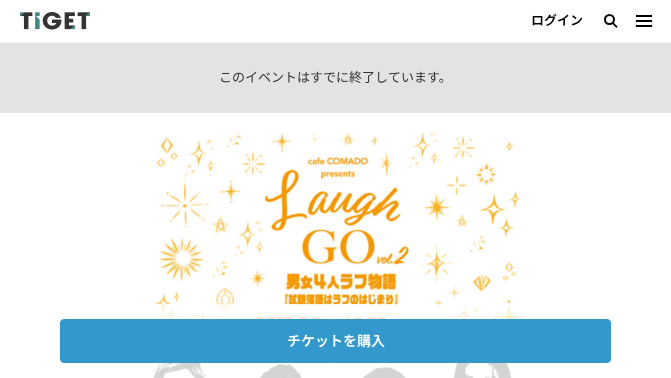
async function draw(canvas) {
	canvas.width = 671;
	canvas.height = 378;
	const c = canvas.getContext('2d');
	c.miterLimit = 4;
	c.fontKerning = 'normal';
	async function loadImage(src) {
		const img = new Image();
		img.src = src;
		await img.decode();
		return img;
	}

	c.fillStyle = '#fff';
	c.fillRect(0, 0, 671, 378);
	c.fillStyle = '#f0f0f0';
	c.fillRect(0, 42, 671, 1);
	c.drawImage(await loadImage('img1.png'), 20, 12, 70, 18);
	c.font = '600 13px Noto Sans JP';
	c.fillStyle = '#000';
	c.fillText('ログイン', 531, 25);
	c.beginPath();
	c.arc(609.5, 19.5, 4.5, 0, 2 * Math.PI);
	c.strokeStyle = '#000';
	c.lineWidth = 2;
	c.stroke();
	c.beginPath();
	c.moveTo(613.5, 22.5);
	c.lineTo(617.5, 26.5);
	c.lineTo(616.5, 28);
	c.lineTo(612, 23.5);
	c.closePath();
	c.fill();
	for (const [x, y, w, h, color] of [
		[636, 15, 16, 2, '#000'],
		[636, 20, 16, 2, '#000'],
		[636, 25, 16, 2, '#000'],
		[0, 43, 671, 70, '#e2e3e5'],
	]) {
		c.fillStyle = color;
		c.fillRect(x, y, w, h);
	}
	c.font = '13px Noto Sans JP';
	c.fillStyle = '#333';
	c.fillText('このイベントはすでに終了しています。', 219, 82);
	c.drawImage(await loadImage('img2.png'), 152, 133, 372, 245);
	c.fillStyle = '#ffffffbf';
	c.fillRect(152, 304, 372, 74);
	c.fillStyle = '#39c';
	c.beginPath();
	c.roundRect(60.5, 319.5, 550, 43, 3.5);
	c.fill();
	c.strokeStyle = '#39c';
	c.lineWidth = 1;
	c.stroke();
	c.font = '600 14px Noto Sans JP';
	c.fillStyle = '#fff';
	c.fillText('チケットを購入', 287, 346);
}

draw(document.querySelector('canvas'));
